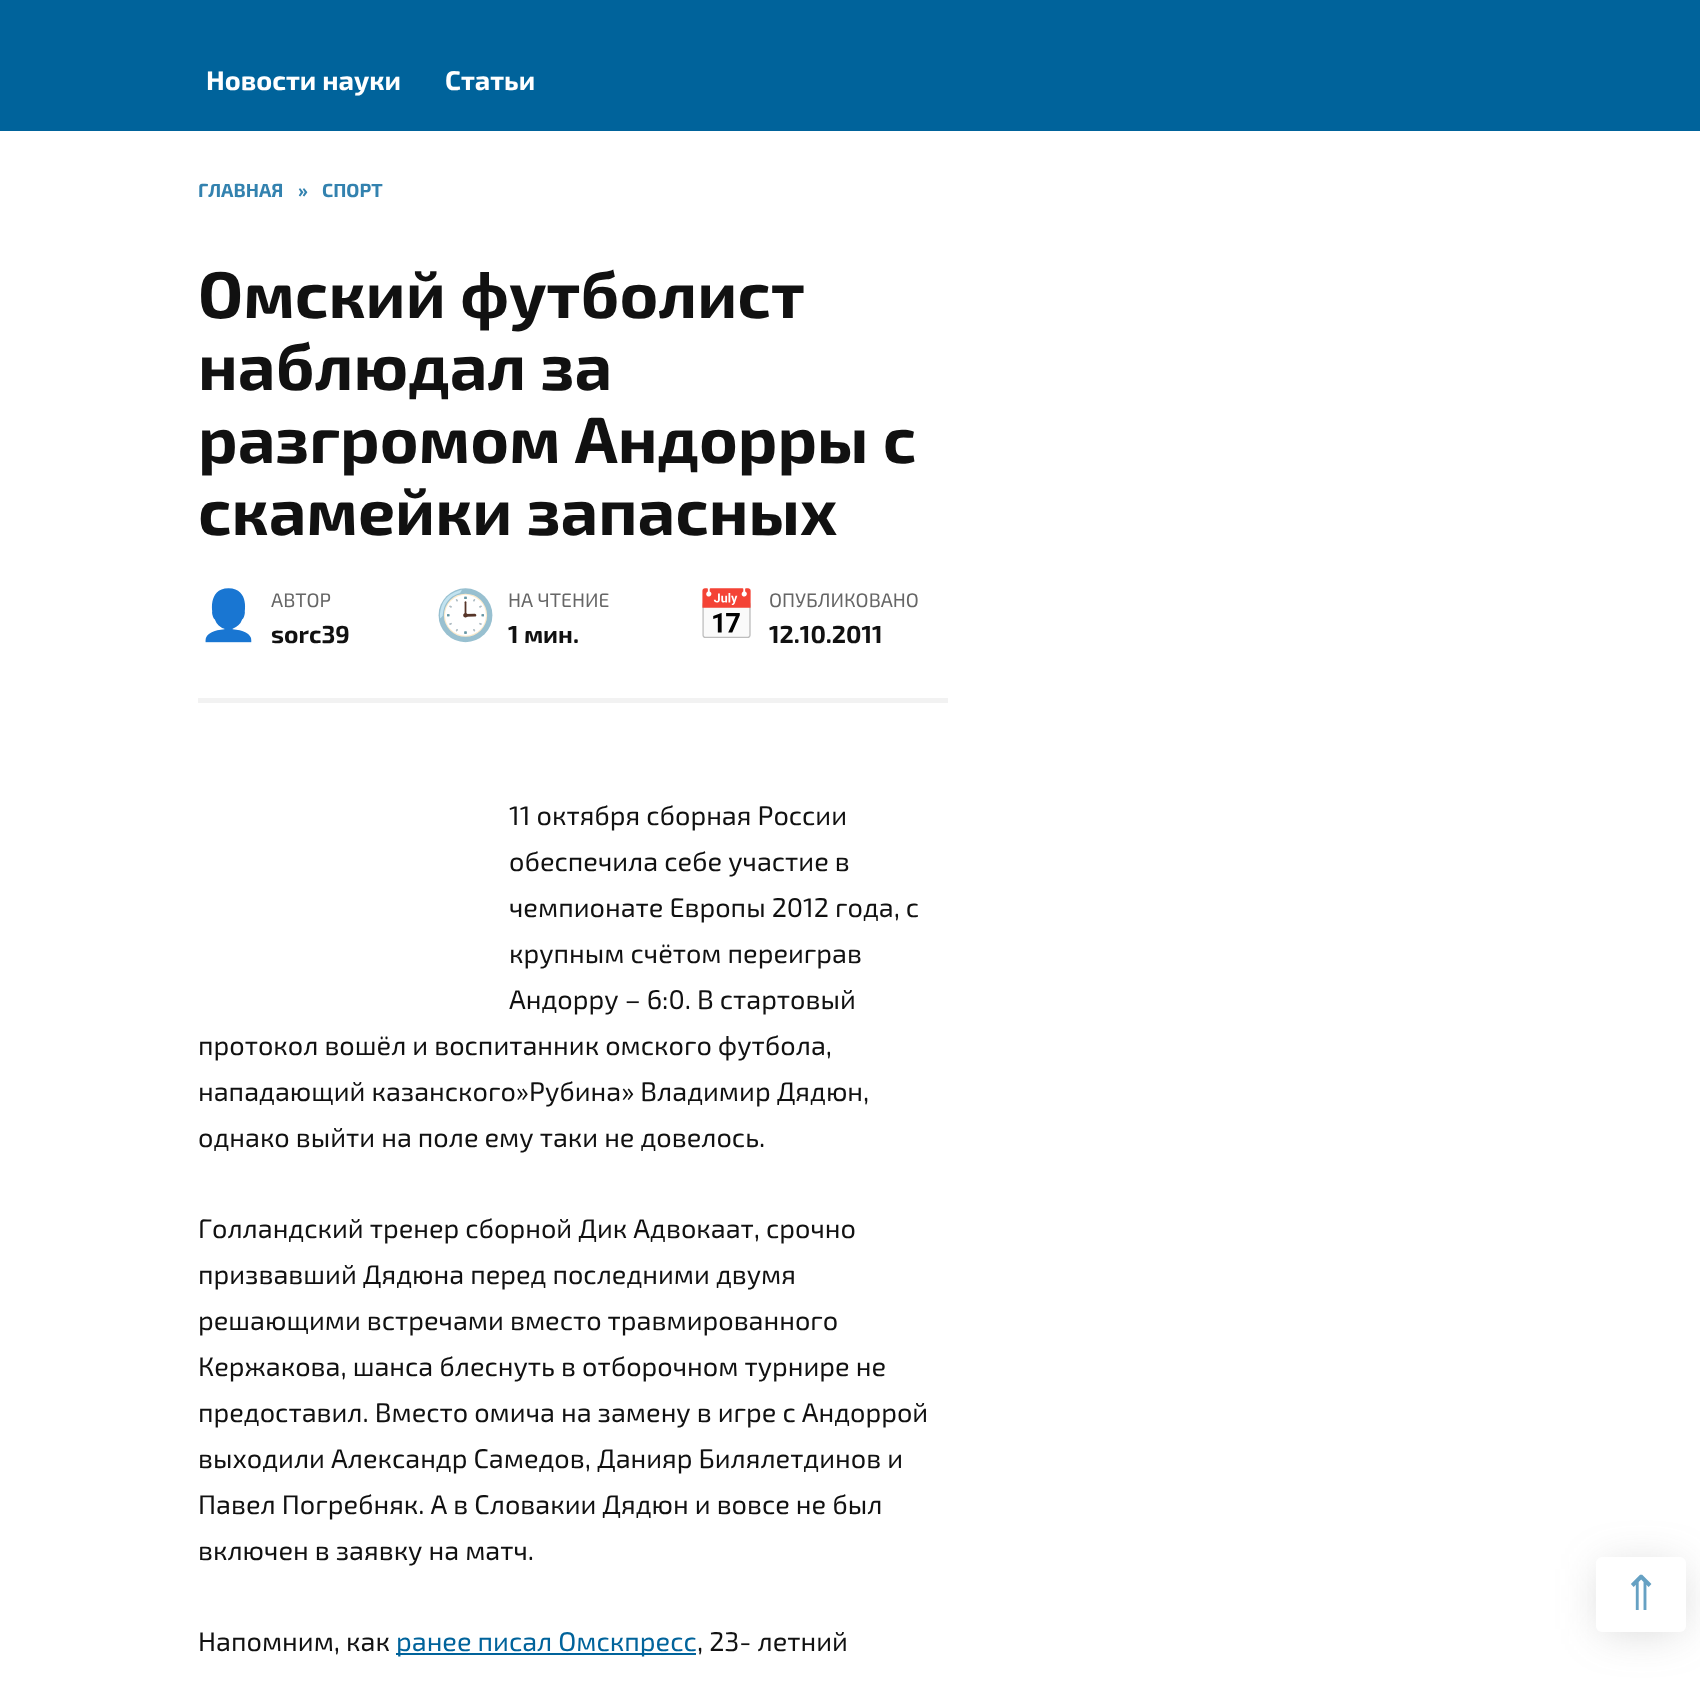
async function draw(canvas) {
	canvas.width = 1700;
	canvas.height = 1691;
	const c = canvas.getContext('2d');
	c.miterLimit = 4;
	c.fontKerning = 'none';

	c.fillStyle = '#fff';
	c.fillRect(0, 0, 1700, 1691);
	c.fillStyle = '#00639b';
	c.fillRect(0, 0, 1700, 131);
	c.font = 'bold 27px "Exo 2"';
	c.fillStyle = '#fff';
	c.fillText('Новости науки', 206, 90);
	c.fillText('Статьи', 445, 90);
	c.font = 'bold 19px "Exo 2"';
	c.fillStyle = '#3382af';
	for (const [text, x, y] of [
		['ГЛАВНАЯ', 198, 197],
		['»', 298, 197],
		['СПОРТ', 322, 197],
	]) {
		c.fillText(text, x, y);
	}
	c.font = 'bold 65.75px "Exo 2"';
	c.fillStyle = '#111';
	for (const [text, x, y] of [
		['Омский футболист', 198, 318],
		['наблюдал за', 198, 390],
		['разгромом Андорры с', 198, 463],
		['скамейки запасных', 198, 535],
	]) {
		c.fillText(text, x, y);
	}
	c.fillStyle = '#f2f2f2';
	c.fillRect(198, 698, 750, 5);
	c.font = '49px Noto Color Emoji';
	c.fillStyle = '#00639b';
	c.fillText('👤', 198, 632);
	c.font = '19.5px "Exo 2"';
	c.fillStyle = '#666';
	c.fillText('АВТОР', 271, 607);
	c.font = 'bold 24.5px "Exo 2"';
	c.fillStyle = '#111';
	c.fillText('sorc39', 271, 643);
	c.font = '49px Noto Color Emoji';
	c.fillStyle = '#00639b';
	c.fillText('🕒', 435, 632);
	c.font = '19.5px "Exo 2"';
	c.fillStyle = '#666';
	c.fillText('НА ЧТЕНИЕ', 508, 607);
	c.font = 'bold 24.5px "Exo 2"';
	c.fillStyle = '#111';
	c.fillText('1 мин.', 508, 643);
	c.font = '49px Noto Color Emoji';
	c.fillStyle = '#00639b';
	c.fillText('📅', 696, 632);
	c.font = '19.5px "Exo 2"';
	c.fillStyle = '#666';
	c.fillText('ОПУБЛИКОВАНО', 769, 607);
	c.font = 'bold 24.5px "Exo 2"';
	c.fillStyle = '#111';
	c.fillText('12.10.2011', 769, 643);
	c.font = '27px "Exo 2"';
	for (const [text, x, y] of [
		['11 октября сборная России', 509, 825],
		['обеспечила себе участие в', 509, 871],
		['чемпионате Европы 2012 года, с', 509, 917],
		['крупным счётом переиграв', 509, 963],
		['Андорру – 6:0. В стартовый', 509, 1009],
		['протокол вошёл и воспитанник омского футбола,', 198, 1055],
		['нападающий казанского»Рубина» Владимир Дядюн,', 198, 1101],
		['однако выйти на поле ему таки не довелось.', 198, 1147],
		['Голландский тренер сборной Дик Адвокаат, срочно', 198, 1238],
		['призвавший Дядюна перед последними двумя', 198, 1284],
		['решающими встречами вместо травмированного', 198, 1330],
		['Кержакова, шанса блеснуть в отборочном турнире не', 198, 1376],
		['предоставил. Вместо омича на замену в игре с Андоррой', 198, 1422],
		['выходили Александр Самедов, Данияр Билялетдинов и', 198, 1468],
		['Павел Погребняк. А в Словакии Дядюн и вовсе не был', 198, 1514],
		['включен в заявку на матч.', 198, 1560],
		['Напомним, как', 198, 1651],
	]) {
		c.fillText(text, x, y);
	}
	c.fillStyle = '#00639b';
	c.fillRect(396, 1653, 300, 2);
	c.fillText('ранее писал Омскпресс', 396, 1651);
	c.fillStyle = '#111';
	c.fillText(', 23- летний', 697, 1651);
	c.fillStyle = '#6666664d';
	c.filter = 'blur(22.5px)';
	c.beginPath();
	c.rect(1604, 1569, 75, 60);
	c.fill();
	c.filter = 'none';
	c.fillStyle = '#fff';
	c.beginPath();
	c.roundRect(1596, 1557, 90, 75, 6);
	c.fill();
	c.font = '48px DejaVu Sans';
	c.fillStyle = '#66a1c3';
	c.fillText('⇑', 1621, 1610);
}

draw(document.querySelector('canvas'));
